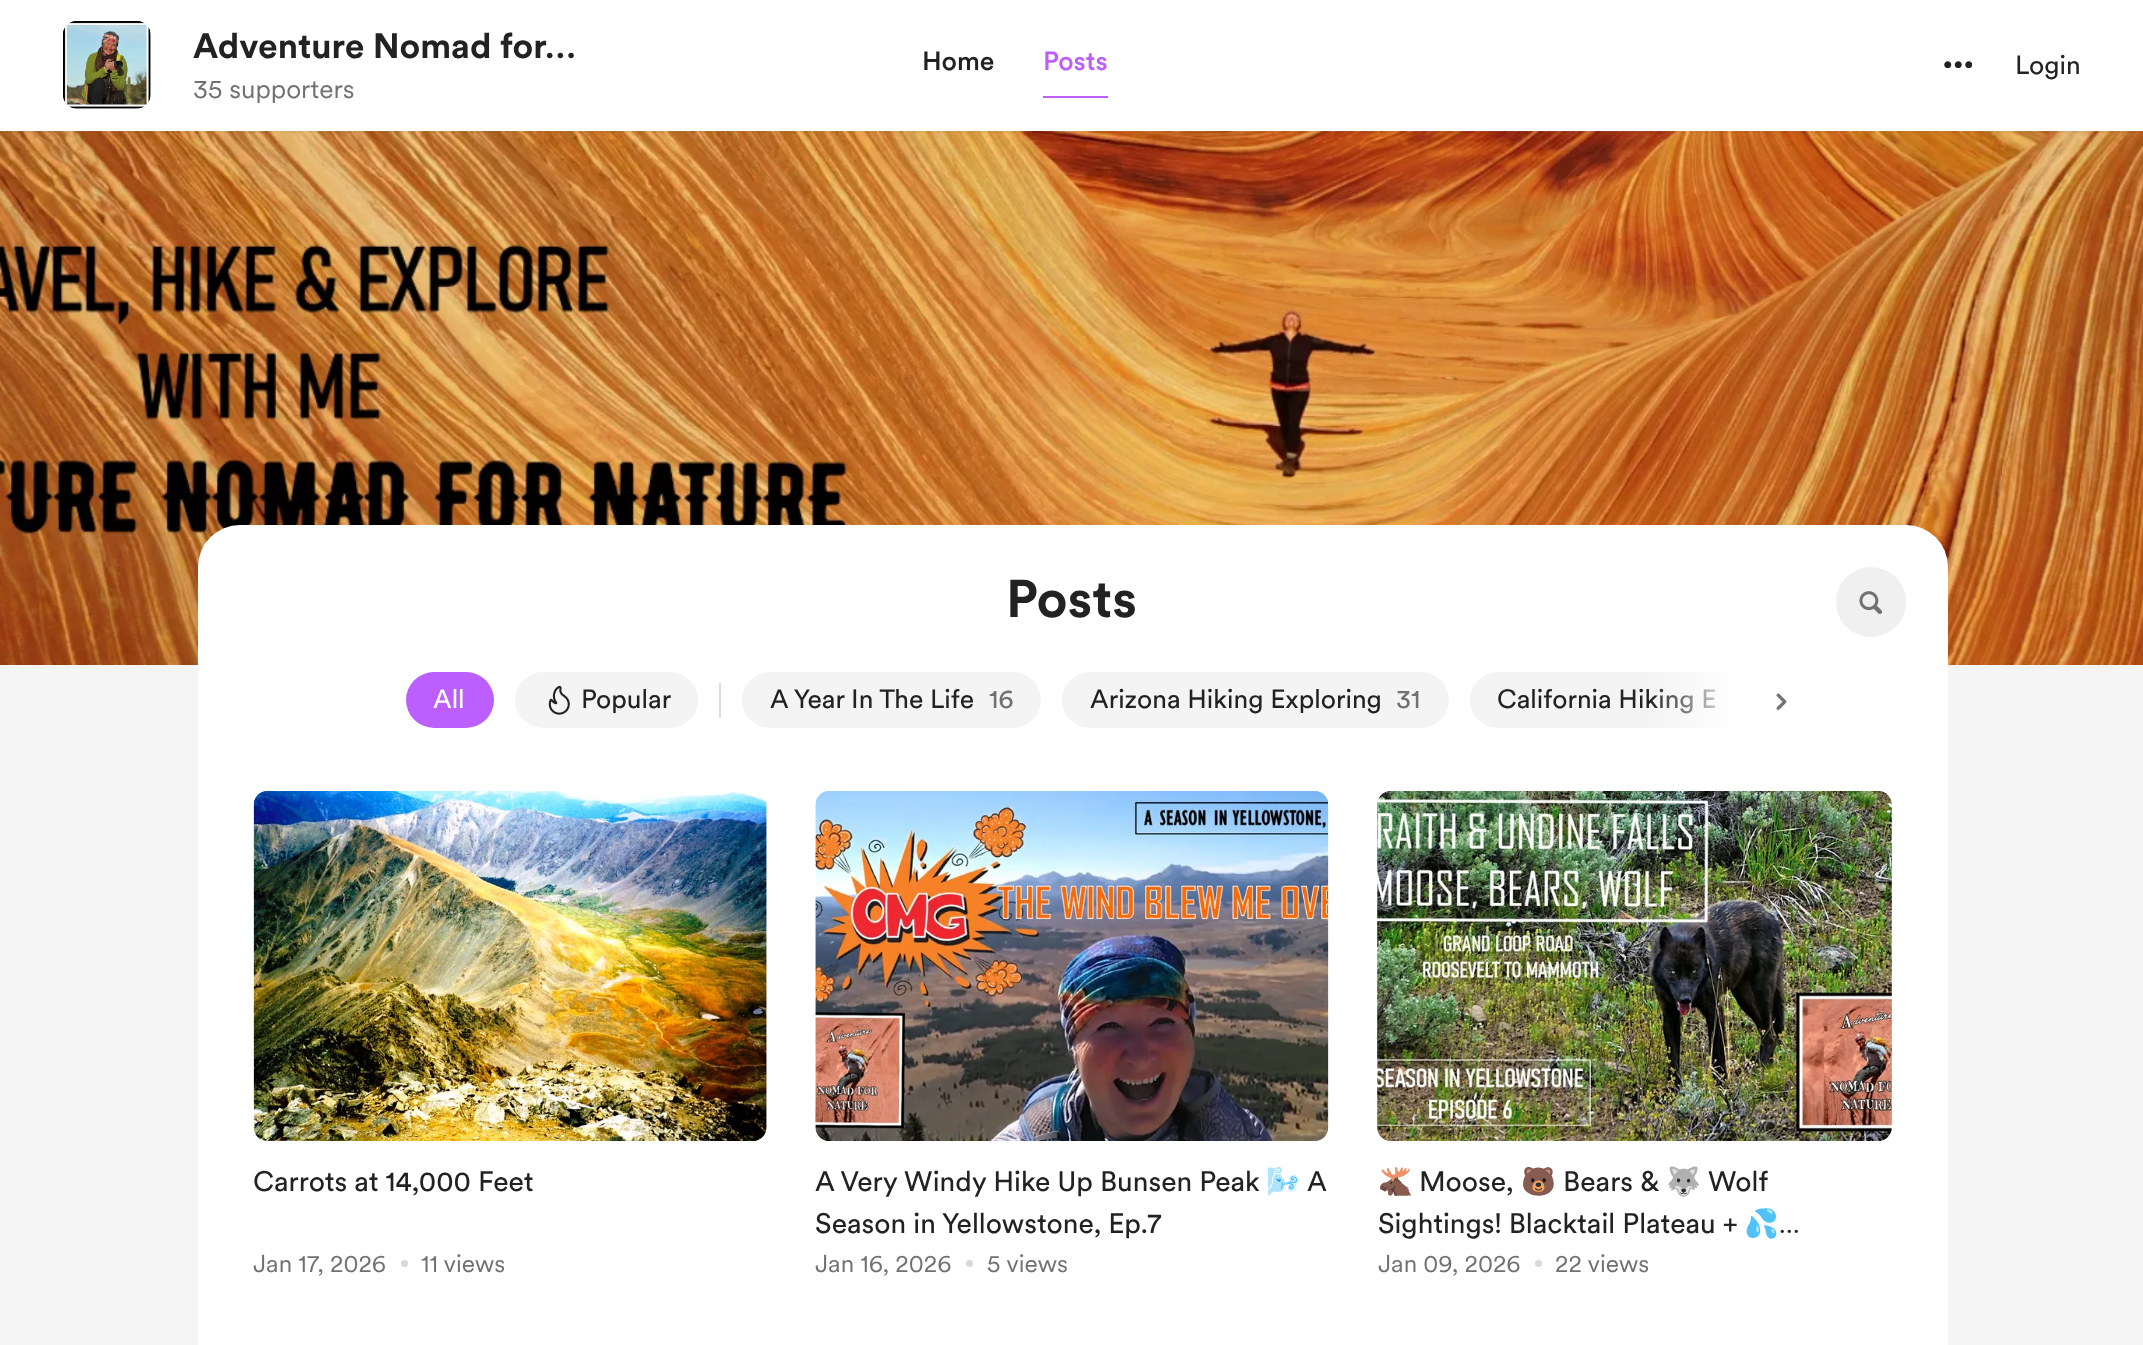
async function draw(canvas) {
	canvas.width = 2143;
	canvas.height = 1345;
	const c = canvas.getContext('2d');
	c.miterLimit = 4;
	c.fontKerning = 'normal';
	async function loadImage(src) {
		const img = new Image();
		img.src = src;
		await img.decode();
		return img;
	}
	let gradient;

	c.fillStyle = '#fff';
	c.fillRect(0, 0, 2143, 1345);
	c.fillStyle = '#f5f5f5';
	c.fillRect(0, 131, 2143, 1214);
	c.drawImage(await loadImage('img4.png'), 0, 131, 2143, 534);
	c.drawImage(await loadImage('img5.png'), 0, 131, 2143, 1);
	c.save();
	c.beginPath();
	c.rect(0, 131, 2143, 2);
	c.clip();
	c.fillStyle = '#0000000f';
	c.filter = 'blur(1px)';
	c.beginPath();
	c.rect(0, 2, 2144, 131);
	c.fill();
	c.filter = 'none';
	c.restore();
	c.drawImage(await loadImage('img1.png'), 63, 21, 88, 88);
	c.drawImage(await loadImage('img2.png'), 63, 21, 88, 88);
	c.font = 'bold 35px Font';
	c.fillStyle = '#222';
	c.fillText('Adventure Nomad for…', 193, 58);
	c.font = '26.25px "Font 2"';
	c.fillStyle = '#717171';
	c.fillText('35 supporters', 193, 98);
	c.font = '500 26.25px Font';
	c.fillStyle = '#222';
	c.fillText('Home', 922, 70);
	c.fillStyle = '#bd5fff';
	c.fillText('Posts', 1043, 70);
	c.fillRect(1043, 96, 65, 2);
	c.drawImage(await loadImage('img3.png'), 1944, 61, 28, 7);
	c.font = '26.25px Font';
	c.fillStyle = '#222';
	c.fillText('Login', 2015, 74);
	c.fillStyle = '#fff';
	c.beginPath();
	c.roundRect(198, 525, 1750, 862, 42);
	c.fill();
	c.font = 'bold 52.5px Font';
	c.fillStyle = '#222';
	c.fillText('Posts', 1006, 617);
	c.fillStyle = '#f0f0f0';
	c.beginPath();
	c.arc(1871, 602, 35, 0, 2 * Math.PI);
	c.fill();
	c.drawImage(await loadImage('img6.png'), 1859, 591, 23, 23);
	c.fillStyle = '#f4f4f4';
	c.beginPath();
	c.roundRect(1470, 672, 268, 56, [28, 0, 0, 28]);
	c.fill();
	c.font = '26.25px Font';
	c.fillStyle = '#222';
	c.fillText('California Hiking E', 1497, 708);
	gradient = c.createLinearGradient(1738, 700, 1650, 700);
	gradient.addColorStop(0, '#fff');
	gradient.addColorStop(1, '#ffffff00');
	c.fillStyle = gradient;
	c.fillRect(1652, 672, 86, 56);
	c.fillStyle = '#bd5fff';
	c.beginPath();
	c.roundRect(406, 672, 88, 56, 28);
	c.fill();
	c.fillStyle = '#fff';
	c.fillText('All', 433, 708);
	c.fillStyle = '#f4f4f4';
	c.beginPath();
	c.roundRect(515, 672, 183, 56, 28);
	c.fill();
	c.drawImage(await loadImage('img7.png'), 548, 685, 22, 30);
	c.fillStyle = '#222';
	c.fillText('Popular', 581, 708);
	c.fillStyle = '#ddd';
	c.fillRect(719, 683, 2, 35);
	c.fillStyle = '#f4f4f4';
	c.beginPath();
	c.roundRect(742, 672, 299, 56, 28);
	c.fill();
	c.fillStyle = '#222';
	c.fillText('A Year In The Life', 770, 708);
	c.fillStyle = '#717171';
	c.fillText('16', 989, 708);
	c.fillStyle = '#f4f4f4';
	c.beginPath();
	c.roundRect(1062, 672, 387, 56, 28);
	c.fill();
	c.fillStyle = '#222';
	c.fillText('Arizona Hiking Exploring', 1090, 708);
	c.fillStyle = '#717171';
	c.fillText('31', 1396, 708);
	c.drawImage(await loadImage('img8.png'), 1776, 693, 11, 17);
	c.drawImage(await loadImage('img9.png'), 253, 791, 514, 350);
	c.drawImage(await loadImage('img10.png'), 253, 791, 514, 350);
	c.font = '28px Font';
	c.fillStyle = '#222';
	c.fillText('Carrots at 14,000 Feet', 253, 1191);
	c.font = '24.5px "Font 2"';
	c.fillStyle = '#717171';
	c.fillText('Jan 17, 2026', 253, 1272);
	c.fillStyle = '#d9d9d9';
	c.beginPath();
	c.arc(404.5, 1263.5, 3.5, 0, 2 * Math.PI);
	c.fill();
	c.fillStyle = '#717171';
	c.fillText('11 views', 421, 1272);
	c.drawImage(await loadImage('img11.png'), 815, 791, 514, 350);
	c.drawImage(await loadImage('img12.png'), 815, 791, 514, 350);
	c.font = '28px Font';
	c.fillStyle = '#222';
	c.fillText('A Very Windy Hike Up Bunsen Peak', 815, 1191);
	c.font = '28px Noto Color Emoji';
	c.fillText('🌬️', 1266, 1191);
	c.font = '28px Font';
	c.fillText('A', 1307, 1191);
	c.fillText('Season in Yellowstone, Ep.7', 815, 1233);
	c.font = '24.5px "Font 2"';
	c.fillStyle = '#717171';
	c.fillText('Jan 16, 2026', 815, 1272);
	c.fillStyle = '#d9d9d9';
	c.beginPath();
	c.arc(969.5, 1263.5, 3.5, 0, 2 * Math.PI);
	c.fill();
	c.fillStyle = '#717171';
	c.fillText('5 views', 987, 1272);
	c.drawImage(await loadImage('img13.png'), 1377, 791, 515, 350);
	c.drawImage(await loadImage('img14.png'), 1377, 791, 515, 350);
	c.font = '28px Noto Color Emoji';
	c.fillStyle = '#222';
	c.fillText('🫎', 1378, 1191);
	c.font = '28px Font';
	c.fillText('Moose,', 1419, 1191);
	c.font = '28px Noto Color Emoji';
	c.fillText('🐻', 1521, 1191);
	c.font = '28px Font';
	c.fillText('Bears &', 1563, 1191);
	c.font = '28px Noto Color Emoji';
	c.fillText('🐺', 1666, 1191);
	c.font = '28px Font';
	c.fillText('Wolf', 1708, 1191);
	c.fillText('Sightings! Blacktail Plateau +', 1378, 1233);
	c.font = '28px Noto Color Emoji';
	c.fillText('💦...', 1744, 1233);
	c.font = '24.5px "Font 2"';
	c.fillStyle = '#717171';
	c.fillText('Jan 09, 2026', 1378, 1272);
	c.fillStyle = '#d9d9d9';
	c.beginPath();
	c.arc(1538.5, 1263.5, 3.5, 0, 2 * Math.PI);
	c.fill();
	c.fillStyle = '#717171';
	c.fillText('22 views', 1555, 1272);
}

draw(document.querySelector('canvas'));
